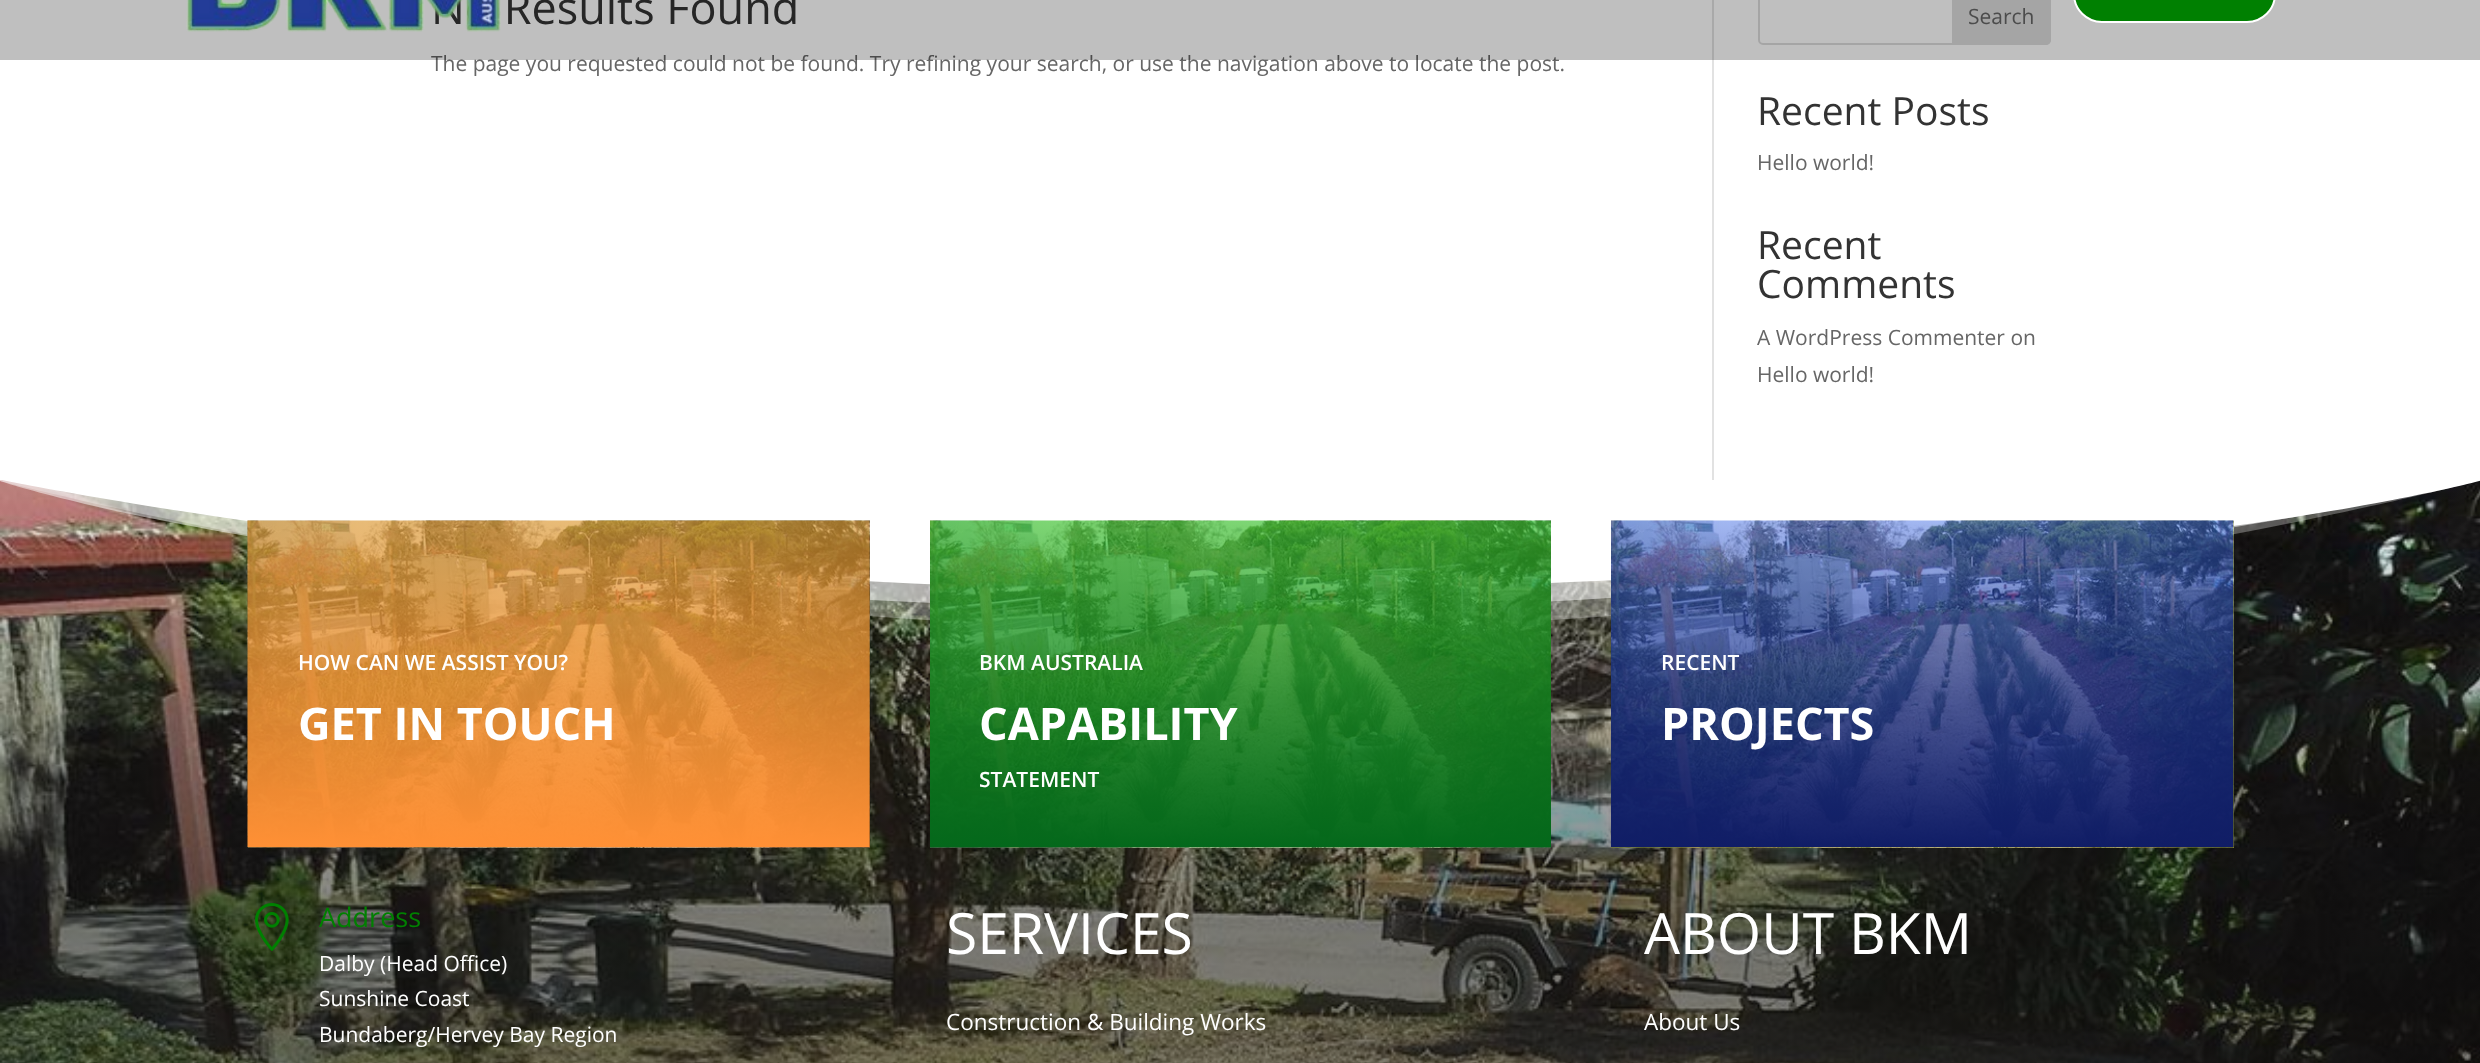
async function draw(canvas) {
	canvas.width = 2480;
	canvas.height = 1063;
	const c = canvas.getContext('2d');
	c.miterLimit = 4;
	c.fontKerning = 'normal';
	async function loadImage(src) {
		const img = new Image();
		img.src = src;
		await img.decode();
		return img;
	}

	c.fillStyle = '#fff';
	c.fillRect(0, 0, 2480, 1063);
	c.font = '45px Open Sans';
	c.fillStyle = '#333';
	c.fillText('No Results Found', 431, 24);
	c.font = '21px Open Sans';
	c.fillStyle = '#666';
	c.fillText('The page you requested could not be found. Try refining your search, or use the navigation above to locate the post.', 431, 71);
	c.beginPath();
	c.roundRect(1759, -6, 291, 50, 4);
	c.strokeStyle = '#ddd';
	c.lineWidth = 2;
	c.stroke();
	c.fillStyle = '#ddd';
	c.beginPath();
	c.moveTo(1953, -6);
	c.lineTo(2046, -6);
	c.bezierCurveTo(2048, -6, 2050, -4, 2050, -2);
	c.lineTo(2050, 40);
	c.bezierCurveTo(2050, 42, 2048, 44, 2046, 44);
	c.lineTo(1953, 44);
	c.closePath();
	c.fill();
	c.stroke();
	c.fillStyle = '#666';
	c.fillText('Search', 1968, 24);
	c.fillStyle = '#e2e2e2';
	c.fillRect(1712, 0, 2, 480);
	c.fillStyle = '#00000040';
	c.fillRect(0, 0, 2480, 60);
	c.drawImage(await loadImage('img1.png'), 186, 0, 315, 32);
	c.fillStyle = '#008001';
	c.beginPath();
	c.roundRect(2074, -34, 201, 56, 32);
	c.fill();
	c.strokeStyle = '#fff';
	c.stroke();
	c.font = '39px Open Sans';
	c.fillStyle = '#333';
	c.fillText('Recent Posts', 1757, 125);
	c.font = '21px Open Sans';
	c.fillStyle = '#666';
	c.fillText('Hello world!', 1757, 170);
	c.font = '39px Open Sans';
	c.fillStyle = '#333';
	c.fillText('Recent', 1757, 259);
	c.fillText('Comments', 1757, 298);
	c.font = '21px Open Sans';
	c.fillStyle = '#666';
	c.fillText('A WordPress Commenter on', 1757, 345);
	c.fillText('Hello world!', 1757, 382);
	c.drawImage(await loadImage('img2.png'), 0, 480, 2480, 583);
	c.fillStyle = '#ffffff4d';
	c.beginPath();
	c.moveTo(0, 480);
	c.lineTo(0, 481);
	c.bezierCurveTo(36, 490, 577, 630, 1240, 630);
	c.bezierCurveTo(1925, 630, 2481, 480, 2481, 480);
	c.closePath();
	c.fill();
	c.fillStyle = '#ffffff80';
	c.beginPath();
	c.moveTo(0, 481);
	c.bezierCurveTo(27, 490, 342, 588, 1077, 608);
	c.bezierCurveTo(1846, 630, 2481, 480, 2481, 480);
	c.lineTo(0, 480);
	c.closePath();
	c.fill();
	c.fillStyle = '#fff';
	c.beginPath();
	c.moveTo(1408, 588);
	c.bezierCurveTo(2183, 566, 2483, 480, 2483, 480);
	c.lineTo(2, 480);
	c.bezierCurveTo(2, 480, 632, 611, 1408, 588);
	c.closePath();
	c.fill();
	c.fillStyle = '#ffb2669c';
	c.fillRect(248, 847, 622, 1);
	c.drawImage(await loadImage('img3.png'), 247, 520, 623, 328);
	c.font = '600 21px Open Sans';
	c.fillStyle = '#fff';
	c.fillText('HOW CAN WE ASSIST YOU?', 298, 670);
	c.font = 'bold 45px Open Sans';
	c.fillText('GET IN TOUCH', 298, 740);
	c.fillStyle = '#58dd7c9c';
	c.fillRect(930, 847, 621, 1);
	c.drawImage(await loadImage('img4.png'), 930, 520, 621, 328);
	c.font = '600 21px Open Sans';
	c.fillStyle = '#fff';
	c.fillText('BKM AUSTRALIA', 979, 670);
	c.font = 'bold 45px Open Sans';
	c.fillText('CAPABILITY', 979, 740);
	c.font = '600 21px Open Sans';
	c.fillText('STATEMENT', 979, 787);
	c.fillStyle = '#edf7629c';
	c.fillRect(1611, 521, 623, 327);
	c.drawImage(await loadImage('img5.png'), 1611, 520, 623, 328);
	c.fillStyle = '#fff';
	c.fillText('RECENT', 1661, 670);
	c.font = 'bold 45px Open Sans';
	c.fillText('PROJECTS', 1661, 740);
	c.drawImage(await loadImage('img6.png'), 255, 903, 34, 48);
	c.font = '27px Open Sans';
	c.fillStyle = '#008001';
	c.fillText('Address', 319, 927);
	c.font = '21px Open Sans';
	c.fillStyle = '#fff';
	for (const [text, x, y] of [
		['Dalby (Head Office)', 319, 971],
		['Sunshine Coast', 319, 1006],
		['Bundaberg/Hervey Bay Region', 319, 1042],
	]) {
		c.fillText(text, x, y);
	}
	c.font = '57px Open Sans';
	c.fillText('SERVICES', 946, 954);
	c.font = '22.5px Open Sans';
	c.fillText('Construction & Building Works', 946, 1030);
	c.font = '57px Open Sans';
	c.fillText('ABOUT BKM', 1644, 954);
	c.font = '22.5px Open Sans';
	c.fillText('About Us', 1644, 1030);
}

draw(document.querySelector('canvas'));
